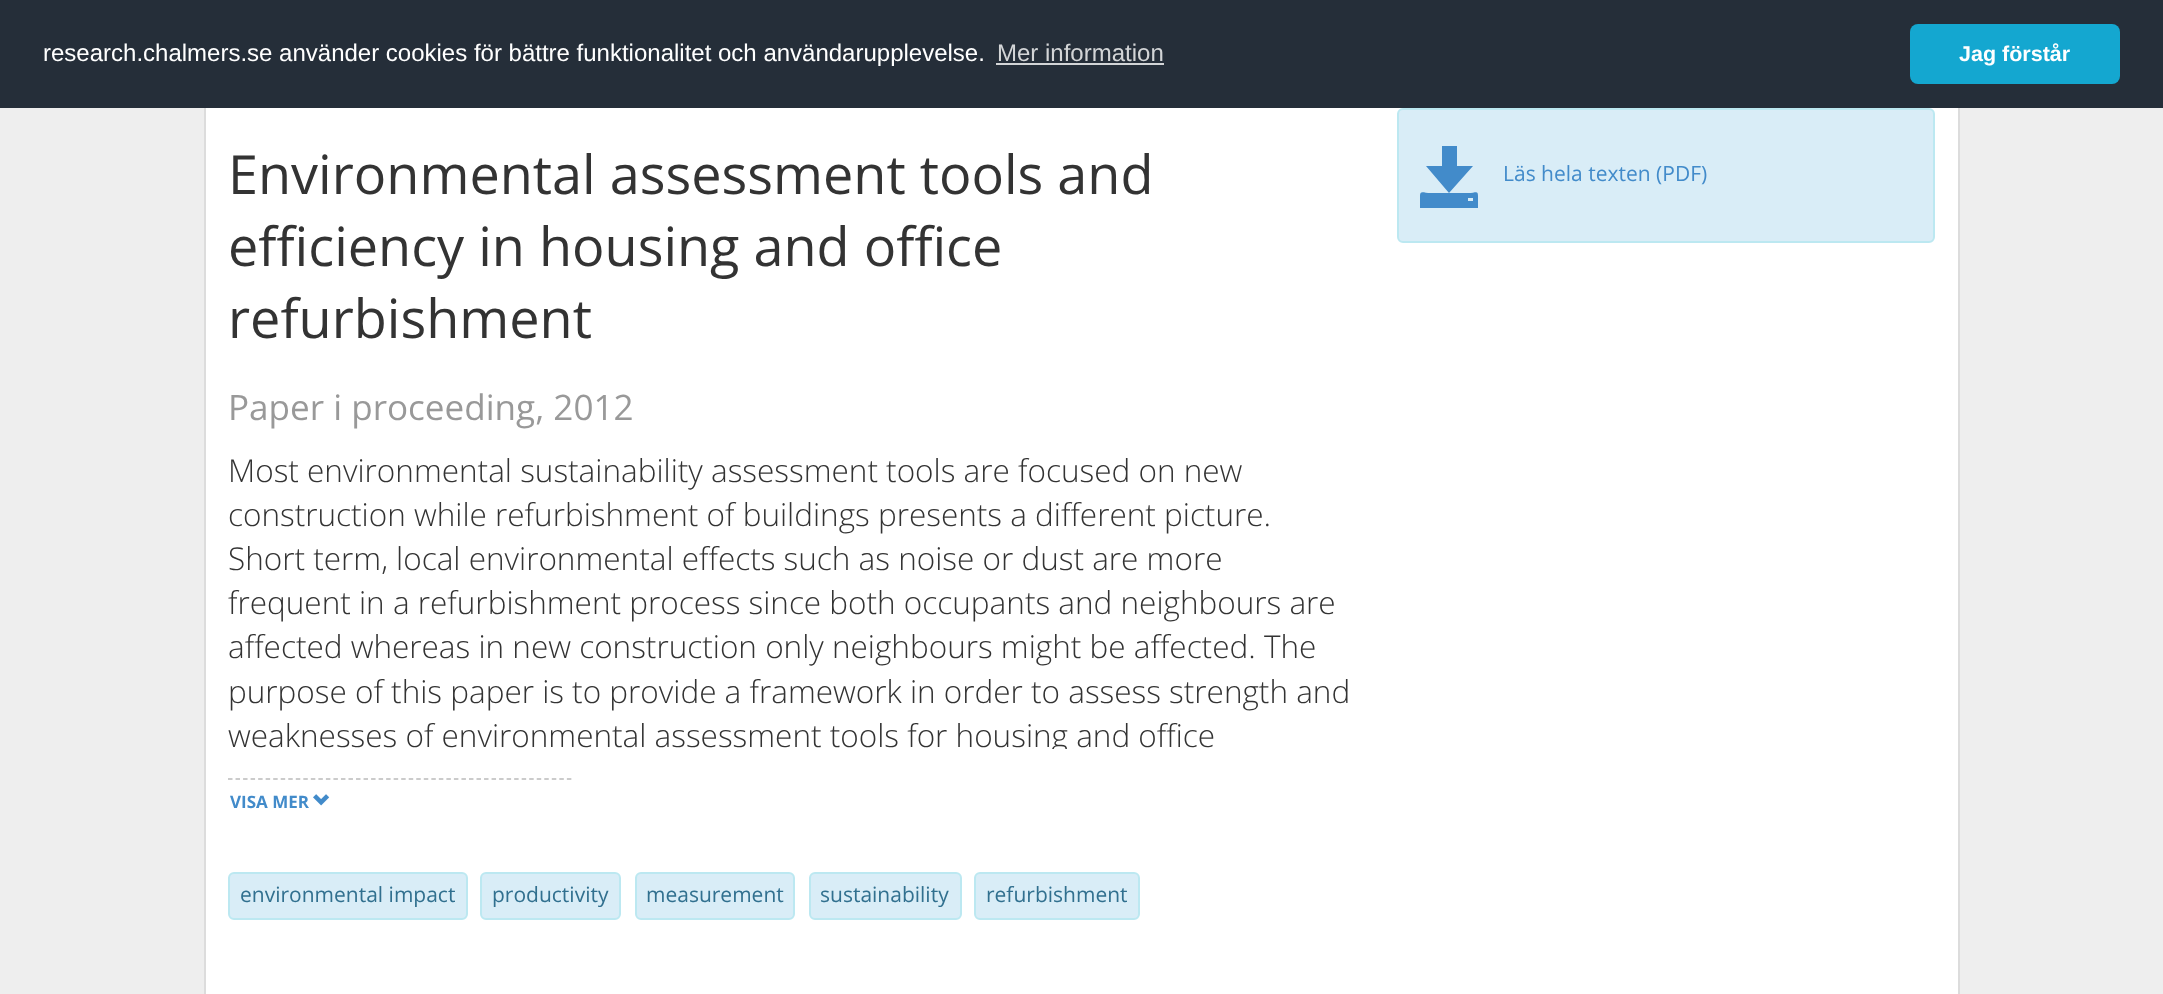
async function draw(canvas) {
	canvas.width = 2163;
	canvas.height = 994;
	const c = canvas.getContext('2d');
	c.miterLimit = 4;
	c.fontKerning = 'normal';
	async function loadImage(src) {
		const img = new Image();
		img.src = src;
		await img.decode();
		return img;
	}

	c.fillStyle = '#eee';
	c.fillRect(0, 0, 2163, 994);
	c.fillStyle = '#252e39';
	c.fillRect(0, 0, 2163, 108);
	c.font = '24px Liberation Sans';
	c.fillStyle = '#fff';
	c.fillText('research.chalmers.se använder cookies för bättre funktionalitet och användarupplevelse.', 43, 61);
	c.fillStyle = '#d3d5d7';
	c.fillText('Mer information', 997, 61);
	c.fillRect(996, 63, 168, 2);
	c.fillStyle = '#14a7d0';
	c.beginPath();
	c.roundRect(1910, 24, 210, 60, 8);
	c.fill();
	c.font = 'bold 21.5px Liberation Sans';
	c.fillStyle = '#fff';
	c.fillText('Jag förstår', 1959, 61);
	for (const [x, y, w, h, color] of [
		[206, 108, 1752, 886, '#fff'],
		[1958, 108, 2, 886, '#dcdcdc'],
		[204, 108, 2, 886, '#dcdcdc'],
	]) {
		c.fillStyle = color;
		c.fillRect(x, y, w, h);
	}
	c.font = '54px Open Sans';
	c.fillStyle = '#333';
	for (const [text, x, y] of [
		['Environmental assessment tools and', 228, 194],
		['efficiency in housing and office', 228, 266],
		['refurbishment', 228, 338],
	]) {
		c.fillText(text, x, y);
	}
	c.font = '35.1px Open Sans';
	c.fillStyle = '#999';
	c.fillText('Paper i proceeding, 2012', 228, 420);
	c.font = '300 31.5px Open Sans';
	c.fillStyle = '#333';
	for (const [text, x, y] of [
		['Most environmental sustainability assessment tools are focused on new', 228, 482],
		['construction while refurbishment of buildings presents a different picture.', 228, 526],
		['Short term, local environmental effects such as noise or dust are more', 228, 570],
		['frequent in a refurbishment process since both occupants and neighbours are', 228, 614],
		['affected whereas in new construction only neighbours might be affected. The', 228, 658],
		['purpose of this paper is to provide a framework in order to assess strength and', 228, 703],
	]) {
		c.fillText(text, x, y);
	}
	c.save();
	c.beginPath();
	c.rect(228, 449, 1124, 300);
	c.clip();
	c.fillText('weaknesses of environmental assessment tools for housing and office', 228, 747);
	c.restore();
	c.beginPath();
	c.moveTo(228, 779);
	c.lineTo(571.5, 779);
	c.strokeStyle = '#bbb';
	c.lineWidth = 1.5;
	c.setLineDash([4.5, 3.03]);
	c.stroke();
	c.font = 'bold 17px Open Sans';
	c.fillStyle = '#428bca';
	c.fillText('VISA MER', 230, 808);
	c.drawImage(await loadImage('img1.png'), 313, 794, 17, 12);
	c.fillStyle = '#d9edf7';
	c.beginPath();
	c.roundRect(229, 873, 238, 46, 5);
	c.fill();
	c.strokeStyle = '#bce8f1';
	c.lineWidth = 2;
	c.setLineDash([]);
	c.stroke();
	c.font = '21px Open Sans';
	c.fillStyle = '#31708f';
	c.fillText('environmental impact', 240, 902);
	c.fillStyle = '#d9edf7';
	c.beginPath();
	c.roundRect(481, 873, 139, 46, 5);
	c.fill();
	c.stroke();
	c.fillStyle = '#31708f';
	c.fillText('productivity', 492, 902);
	c.fillStyle = '#d9edf7';
	c.beginPath();
	c.roundRect(636, 873, 158, 46, 5);
	c.fill();
	c.stroke();
	c.fillStyle = '#31708f';
	c.fillText('measurement', 646, 902);
	c.fillStyle = '#d9edf7';
	c.beginPath();
	c.roundRect(810, 873, 151, 46, 5);
	c.fill();
	c.stroke();
	c.fillStyle = '#31708f';
	c.fillText('sustainability', 820, 902);
	c.fillStyle = '#d9edf7';
	c.beginPath();
	c.roundRect(975, 873, 164, 46, 5);
	c.fill();
	c.stroke();
	c.fillStyle = '#31708f';
	c.fillText('refurbishment', 986, 902);
	c.fillStyle = '#d9edf7';
	c.beginPath();
	c.roundRect(1398, 109, 536, 133, 5);
	c.fill();
	c.stroke();
	c.fillStyle = '#428bca';
	c.beginPath();
	c.moveTo(1420, 208);
	c.lineTo(1420, 196);
	c.bezierCurveTo(1420, 190, 1423, 193, 1431, 193);
	c.lineTo(1468, 193);
	c.bezierCurveTo(1476, 193, 1478, 190, 1478, 196);
	c.lineTo(1478, 208);
	c.closePath();
	c.moveTo(1426, 166);
	c.lineTo(1449, 193);
	c.lineTo(1473, 166);
	c.lineTo(1457, 166);
	c.lineTo(1457, 146);
	c.lineTo(1442, 146);
	c.lineTo(1442, 166);
	c.closePath();
	c.moveTo(1468, 201);
	c.lineTo(1473, 201);
	c.lineTo(1473, 198);
	c.lineTo(1468, 198);
	c.closePath();
	c.fill();
	c.fillText('Läs hela texten (PDF)', 1503, 181);
}

draw(document.querySelector('canvas'));
